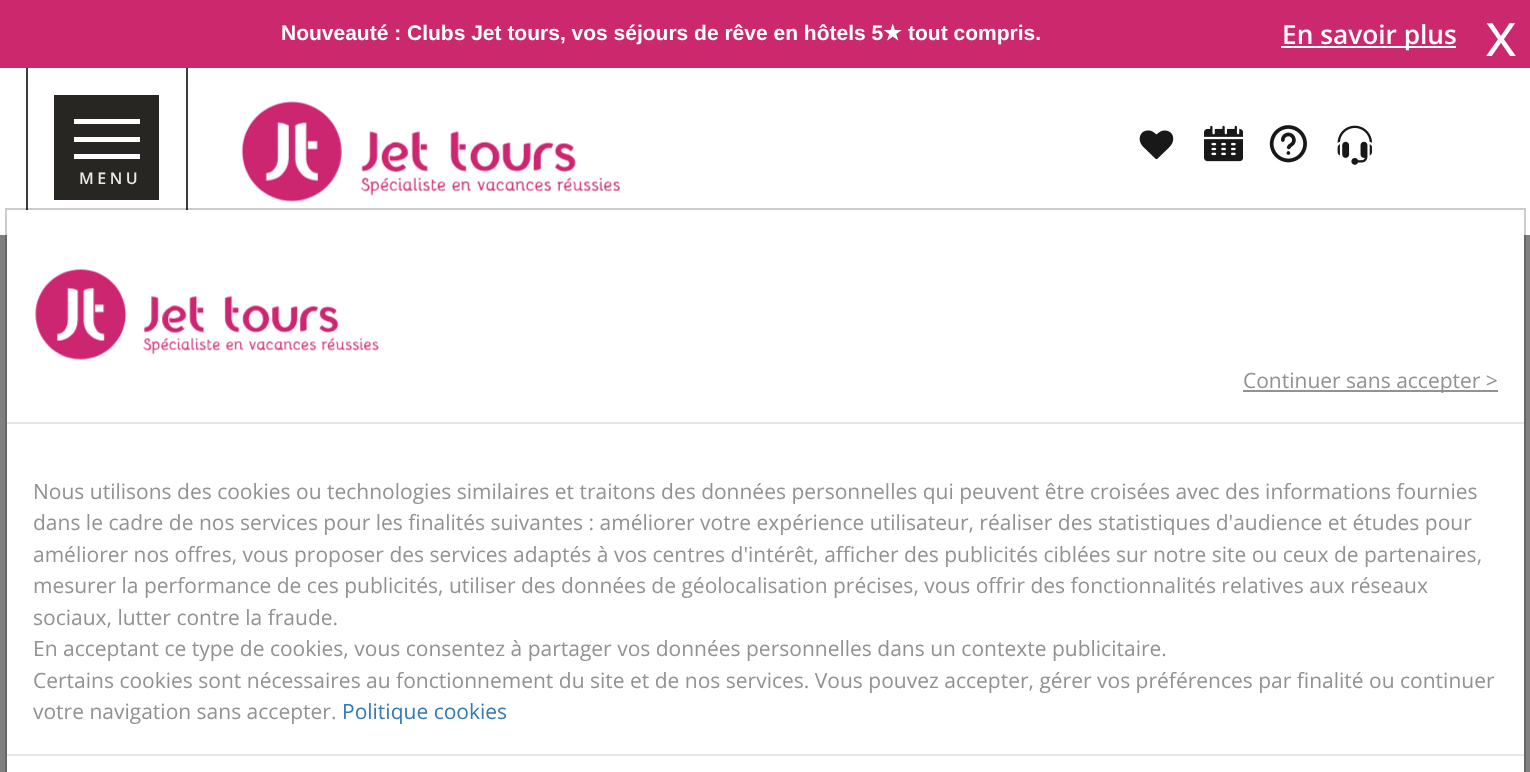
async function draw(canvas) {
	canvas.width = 1530;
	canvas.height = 772;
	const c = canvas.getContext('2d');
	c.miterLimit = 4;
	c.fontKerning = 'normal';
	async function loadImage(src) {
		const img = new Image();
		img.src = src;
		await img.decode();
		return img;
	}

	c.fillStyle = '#808080';
	c.fillRect(0, 0, 1530, 772);
	c.fillStyle = '#fff';
	c.fillRect(0, 68, 1530, 167);
	c.fillStyle = '#cb286e';
	c.fillRect(0, 0, 1530, 68);
	c.font = 'bold 21px Liberation Sans';
	c.fillStyle = '#fff';
	c.fillText('Nouveauté : Clubs Jet tours, vos séjours de rêve en hôtels 5', 281, 40);
	c.font = 'bold 21px DejaVu Sans';
	c.fillText('★', 883, 40);
	c.font = 'bold 21px Liberation Sans';
	c.fillText('tout compris.', 908, 40);
	c.fillRect(1281, 46, 175, 2);
	c.font = '600 26.25px Open Sans';
	c.fillText('En savoir plus', 1282, 44);
	c.font = '61px Open Sans';
	c.fillText('x', 1485, 56);
	c.drawImage(await loadImage('img1.png'), 241, 101, 379, 101);
	c.drawImage(await loadImage('img2.png'), 1139, 130, 35, 30);
	c.drawImage(await loadImage('img3.png'), 1204, 125, 39, 37);
	c.drawImage(await loadImage('img4.png'), 1269, 125, 38, 38);
	c.drawImage(await loadImage('img5.png'), 1337, 125, 35, 40);
	for (const [x, y, w, h, color] of [
		[186, 68, 2, 142, '#3f3b36'],
		[26, 68, 2, 142, '#3f3b36'],
		[54, 95, 105, 105, '#282623'],
		[74, 137, 66, 5, '#fff'],
		[74, 119, 66, 5, '#fff'],
		[74, 154, 66, 5, '#fff'],
	]) {
		c.fillStyle = color;
		c.fillRect(x, y, w, h);
	}
	c.letterSpacing = '3.5px';
	c.font = '600 16px Open Sans';
	c.fillStyle = '#eae9e9';
	c.fillText('MENU', 79, 184);
	c.fillStyle = '#fff';
	c.fillRect(7, 235, 1517, 537);
	c.strokeStyle = '#00000033';
	c.lineWidth = 2;
	c.strokeRect(6, 209, 1519, 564);
	c.fillStyle = '#e5e5e5';
	c.fillRect(7, 422, 1517, 2);
	c.drawImage(await loadImage('img6.png'), 35, 269, 344, 91);
	c.fillStyle = '#929292';
	c.fillRect(1243, 390, 255, 2);
	c.letterSpacing = '0px';
	c.font = '21px Open Sans';
	for (const [text, x, y] of [
		['Continuer sans accepter >', 1243, 388],
		['Nous utilisons des cookies ou technologies similaires et traitons des données personnelles qui peuvent être croisées avec des informations fournies', 33, 499],
		['dans le cadre de nos services pour les finalités suivantes : améliorer votre expérience utilisateur, réaliser des statistiques d\'audience et études pour', 33, 530],
		['améliorer nos offres, vous proposer des services adaptés à vos centres d\'intérêt, afficher des publicités ciblées sur notre site ou ceux de partenaires,', 33, 562],
		['mesurer la performance de ces publicités, utiliser des données de géolocalisation précises, vous offrir des fonctionnalités relatives aux réseaux', 33, 593],
		['sociaux, lutter contre la fraude.', 33, 625],
		['En acceptant ce type de cookies, vous consentez à partager vos données personnelles dans un contexte publicitaire.', 33, 656],
		['Certains cookies sont nécessaires au fonctionnement du site et de nos services. Vous pouvez accepter, gérer vos préférences par finalité ou continuer', 33, 688],
		['votre navigation sans accepter.', 33, 719],
	]) {
		c.fillText(text, x, y);
	}
	c.fillStyle = '#337ab7';
	c.fillText('Politique cookies', 342, 719);
	c.fillStyle = '#e5e5e5';
	c.fillRect(7, 754, 1517, 2);
}

draw(document.querySelector('canvas'));
